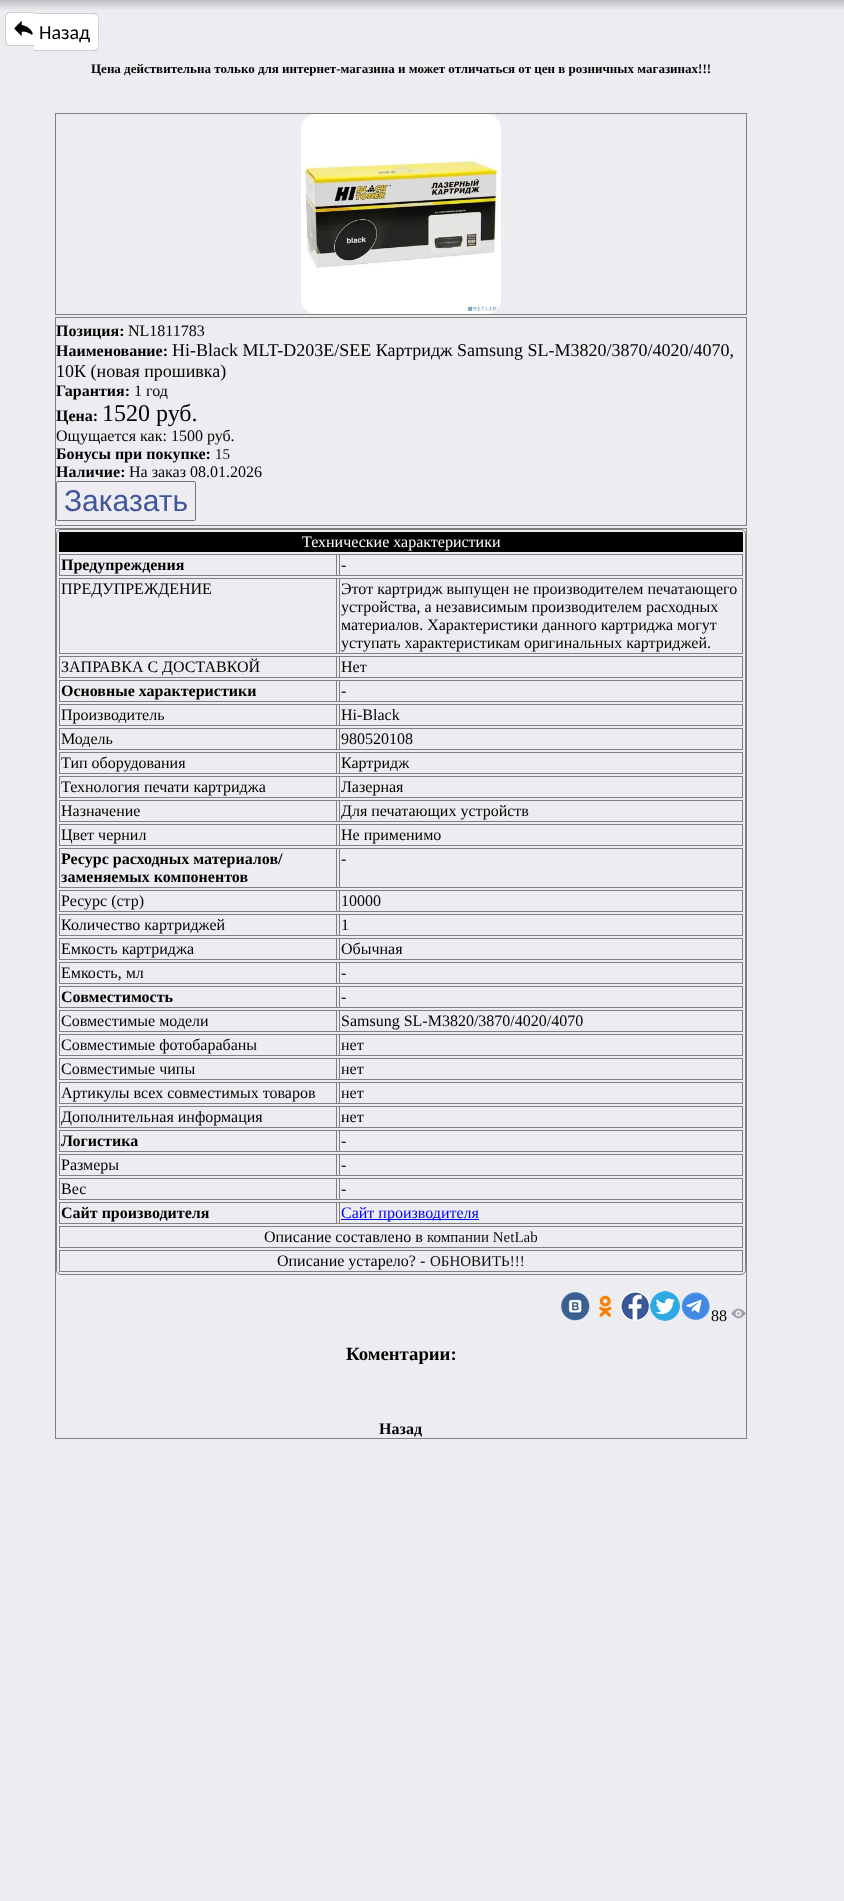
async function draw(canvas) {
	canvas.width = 844;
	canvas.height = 1901;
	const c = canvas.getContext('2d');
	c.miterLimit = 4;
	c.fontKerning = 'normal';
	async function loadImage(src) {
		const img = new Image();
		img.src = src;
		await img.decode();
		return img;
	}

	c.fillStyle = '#ededf1';
	c.fillRect(0, 0, 844, 1901);
	c.drawImage(await loadImage('img1.png'), 0, 0, 844, 10);
	c.fillStyle = '#fff';
	c.beginPath();
	c.roundRect(5, 12, 29, 34, [5, 0, 0, 5]);
	c.fill();
	c.fillStyle = '#cfcfcf';
	c.beginPath();
	c.moveTo(10, 12);
	c.lineTo(34, 12);
	c.lineTo(34, 46);
	c.lineTo(10, 46);
	c.bezierCurveTo(7, 46, 5, 44, 5, 41);
	c.lineTo(5, 17);
	c.bezierCurveTo(5, 14, 7, 12, 10, 12);
	c.closePath();
	c.moveTo(10, 13);
	c.lineTo(34, 13);
	c.lineTo(34, 45);
	c.lineTo(10, 45);
	c.bezierCurveTo(8, 45, 6, 43, 6, 41);
	c.lineTo(6, 17);
	c.bezierCurveTo(6, 15, 8, 13, 10, 13);
	c.closePath();
	c.fill('evenodd');
	c.drawImage(await loadImage('img2.png'), 14, 21, 19, 16);
	c.fillStyle = '#fff';
	c.beginPath();
	c.roundRect(34, 13, 65, 38, [0, 5, 5, 0]);
	c.fill();
	c.fillStyle = '#cfcfcf';
	c.beginPath();
	c.moveTo(34, 13);
	c.lineTo(94, 13);
	c.bezierCurveTo(97, 13, 99, 15, 99, 18);
	c.lineTo(99, 46);
	c.bezierCurveTo(99, 49, 97, 51, 94, 51);
	c.lineTo(34, 51);
	c.closePath();
	c.moveTo(34, 14);
	c.lineTo(84, 14);
	c.bezierCurveTo(102, 14, 98, 14, 98, 32);
	c.bezierCurveTo(98, 50, 102, 50, 84, 50);
	c.lineTo(34, 50);
	c.closePath();
	c.fill('evenodd');
	c.font = '20px Carlito';
	c.fillStyle = '#010101';
	c.fillText('Назад', 39, 39);
	c.font = 'bold 13px Liberation Serif';
	c.fillText('Цена действительна только для интернет-магазина и может отличаться от цен в розничных магазинах!!!', 91, 73);
	c.strokeStyle = '#808080';
	c.strokeRect(55.5, 113.5, 691, 201);
	c.drawImage(await loadImage('img3.png'), 301, 114, 200, 200);
	c.strokeRect(55.5, 317.5, 691, 208);
	c.font = 'bold 16px Liberation Serif';
	c.fillText('Позиция:', 56, 336);
	c.font = '16px Liberation Serif';
	c.fillText('NL1811783', 128, 336);
	c.font = 'bold 16px Liberation Serif';
	c.fillText('Наименование:', 56, 356);
	c.font = '18px Liberation Serif';
	c.fillText('Hi-Black MLT-D203E/SEE Картридж Samsung SL-M3820/3870/4020/4070,', 172, 356);
	c.fillText('10К (новая прошивка)', 56, 377);
	c.font = 'bold 16px Liberation Serif';
	c.fillText('Гарантия:', 56, 396);
	c.font = '16px Liberation Serif';
	c.fillText('1 год', 134, 396);
	c.font = 'bold 16px Liberation Serif';
	c.fillText('Цена:', 56, 421);
	c.font = '24px Liberation Serif';
	c.fillText('1520 руб.', 102, 421);
	c.font = '16px Liberation Serif';
	c.fillText('Ощущается как: 1500 руб.', 56, 441);
	c.font = 'bold 16px Liberation Serif';
	c.fillText('Бонусы при покупке:', 56, 459);
	c.font = '15px Liberation Serif';
	c.fillStyle = '#111';
	c.fillText('15', 215, 459);
	c.font = 'bold 16px Liberation Serif';
	c.fillStyle = '#010101';
	c.fillText('Наличие:', 56, 477);
	c.font = '16px Liberation Serif';
	c.fillText('На заказ 08.01.2026', 129, 477);
	c.beginPath();
	c.roundRect(56.5, 481.5, 139, 39, 1.5);
	c.strokeStyle = '#767676';
	c.stroke();
	c.font = '30px Liberation Sans';
	c.fillStyle = '#41559c';
	c.fillText('Заказать', 64, 511);
	c.strokeStyle = '#808080';
	c.strokeRect(55.5, 528.5, 691, 910);
	c.beginPath();
	c.roundRect(56.5, 529.5, 689, 745, 4.5);
	c.stroke();
	c.fillStyle = '#000';
	c.fillRect(59, 532, 684, 20);
	c.font = '16px Liberation Serif';
	c.fillStyle = '#fff';
	c.fillText('Технические характеристики', 302, 547);
	c.strokeRect(59.5, 554.5, 683, 21);
	c.strokeRect(59.5, 554.5, 277, 21);
	c.font = 'bold 16px Liberation Serif';
	c.fillStyle = '#010101';
	c.fillText('Предупреждения', 61, 570);
	c.strokeRect(339.5, 554.5, 403, 21);
	c.font = '16px Liberation Serif';
	c.fillText('-', 341, 570);
	c.strokeRect(59.5, 578.5, 683, 75);
	c.strokeRect(59.5, 578.5, 277, 75);
	c.fillText('ПРЕДУПРЕЖДЕНИЕ', 61, 594);
	c.strokeRect(339.5, 578.5, 403, 75);
	for (const [text, x, y] of [
		['Этот картридж выпущен не производителем печатающего', 341, 594],
		['устройства, а независимым производителем расходных', 341, 612],
		['материалов. Характеристики данного картриджа могут', 341, 630],
		['уступать характеристикам оригинальных картриджей.', 341, 648],
	]) {
		c.fillText(text, x, y);
	}
	c.strokeRect(59.5, 656.5, 683, 21);
	c.strokeRect(59.5, 656.5, 277, 21);
	c.fillText('ЗАПРАВКА С ДОСТАВКОЙ', 61, 672);
	c.strokeRect(339.5, 656.5, 403, 21);
	c.fillText('Нет', 341, 672);
	c.strokeRect(59.5, 680.5, 683, 21);
	c.strokeRect(59.5, 680.5, 277, 21);
	c.font = 'bold 16px Liberation Serif';
	c.fillText('Основные характеристики', 61, 696);
	c.strokeRect(339.5, 680.5, 403, 21);
	c.font = '16px Liberation Serif';
	c.fillText('-', 341, 696);
	c.strokeRect(59.5, 704.5, 683, 21);
	c.strokeRect(59.5, 704.5, 277, 21);
	c.fillText('Производитель', 61, 720);
	c.strokeRect(339.5, 704.5, 403, 21);
	c.fillText('Hi-Black', 341, 720);
	c.strokeRect(59.5, 728.5, 683, 21);
	c.strokeRect(59.5, 728.5, 277, 21);
	c.fillText('Модель', 61, 744);
	c.strokeRect(339.5, 728.5, 403, 21);
	c.fillText('980520108', 341, 744);
	c.strokeRect(59.5, 752.5, 683, 21);
	c.strokeRect(59.5, 752.5, 277, 21);
	c.fillText('Тип оборудования', 61, 768);
	c.strokeRect(339.5, 752.5, 403, 21);
	c.fillText('Картридж', 341, 768);
	c.strokeRect(59.5, 776.5, 683, 21);
	c.strokeRect(59.5, 776.5, 277, 21);
	c.fillText('Технология печати картриджа', 61, 792);
	c.strokeRect(339.5, 776.5, 403, 21);
	c.fillText('Лазерная', 341, 792);
	c.strokeRect(59.5, 800.5, 683, 21);
	c.strokeRect(59.5, 800.5, 277, 21);
	c.fillText('Назначение', 61, 816);
	c.strokeRect(339.5, 800.5, 403, 21);
	c.fillText('Для печатающих устройств', 341, 816);
	c.strokeRect(59.5, 824.5, 683, 21);
	c.strokeRect(59.5, 824.5, 277, 21);
	c.fillText('Цвет чернил', 61, 840);
	c.strokeRect(339.5, 824.5, 403, 21);
	c.fillText('Не применимо', 341, 840);
	c.strokeRect(59.5, 848.5, 683, 39);
	c.strokeRect(59.5, 848.5, 277, 39);
	c.font = 'bold 16px Liberation Serif';
	c.fillText('Ресурс расходных материалов/', 61, 864);
	c.fillText('заменяемых компонентов', 61, 882);
	c.strokeRect(339.5, 848.5, 403, 39);
	c.font = '16px Liberation Serif';
	c.fillText('-', 341, 864);
	c.strokeRect(59.5, 890.5, 683, 21);
	c.strokeRect(59.5, 890.5, 277, 21);
	c.fillText('Ресурс (стр)', 61, 906);
	c.strokeRect(339.5, 890.5, 403, 21);
	c.fillText('10000', 341, 906);
	c.strokeRect(59.5, 914.5, 683, 21);
	c.strokeRect(59.5, 914.5, 277, 21);
	c.fillText('Количество картриджей', 61, 930);
	c.strokeRect(339.5, 914.5, 403, 21);
	c.fillText('1', 341, 930);
	c.strokeRect(59.5, 938.5, 683, 21);
	c.strokeRect(59.5, 938.5, 277, 21);
	c.fillText('Емкость картриджа', 61, 954);
	c.strokeRect(339.5, 938.5, 403, 21);
	c.fillText('Обычная', 341, 954);
	c.strokeRect(59.5, 962.5, 683, 21);
	c.strokeRect(59.5, 962.5, 277, 21);
	c.fillText('Емкость, мл', 61, 978);
	c.strokeRect(339.5, 962.5, 403, 21);
	c.fillText('-', 341, 978);
	c.strokeRect(59.5, 986.5, 683, 21);
	c.strokeRect(59.5, 986.5, 277, 21);
	c.font = 'bold 16px Liberation Serif';
	c.fillText('Совместимость', 61, 1002);
	c.strokeRect(339.5, 986.5, 403, 21);
	c.font = '16px Liberation Serif';
	c.fillText('-', 341, 1002);
	c.strokeRect(59.5, 1010.5, 683, 21);
	c.strokeRect(59.5, 1010.5, 277, 21);
	c.fillText('Совместимые модели', 61, 1026);
	c.strokeRect(339.5, 1010.5, 403, 21);
	c.fillText('Samsung SL-M3820/3870/4020/4070', 341, 1026);
	c.strokeRect(59.5, 1034.5, 683, 21);
	c.strokeRect(59.5, 1034.5, 277, 21);
	c.fillText('Совместимые фотобарабаны', 61, 1050);
	c.strokeRect(339.5, 1034.5, 403, 21);
	c.fillText('нет', 341, 1050);
	c.strokeRect(59.5, 1058.5, 683, 21);
	c.strokeRect(59.5, 1058.5, 277, 21);
	c.fillText('Совместимые чипы', 61, 1074);
	c.strokeRect(339.5, 1058.5, 403, 21);
	c.fillText('нет', 341, 1074);
	c.strokeRect(59.5, 1082.5, 683, 21);
	c.strokeRect(59.5, 1082.5, 277, 21);
	c.fillText('Артикулы всех совместимых товаров', 61, 1098);
	c.strokeRect(339.5, 1082.5, 403, 21);
	c.fillText('нет', 341, 1098);
	c.strokeRect(59.5, 1106.5, 683, 21);
	c.strokeRect(59.5, 1106.5, 277, 21);
	c.fillText('Дополнительная информация', 61, 1122);
	c.strokeRect(339.5, 1106.5, 403, 21);
	c.fillText('нет', 341, 1122);
	c.strokeRect(59.5, 1130.5, 683, 21);
	c.strokeRect(59.5, 1130.5, 277, 21);
	c.font = 'bold 16px Liberation Serif';
	c.fillText('Логистика', 61, 1146);
	c.strokeRect(339.5, 1130.5, 403, 21);
	c.font = '16px Liberation Serif';
	c.fillText('-', 341, 1146);
	c.strokeRect(59.5, 1154.5, 683, 21);
	c.strokeRect(59.5, 1154.5, 277, 21);
	c.fillText('Размеры', 61, 1170);
	c.strokeRect(339.5, 1154.5, 403, 21);
	c.fillText('-', 341, 1170);
	c.strokeRect(59.5, 1178.5, 683, 21);
	c.strokeRect(59.5, 1178.5, 277, 21);
	c.fillText('Вес', 61, 1194);
	c.strokeRect(339.5, 1178.5, 403, 21);
	c.fillText('-', 341, 1194);
	c.strokeRect(59.5, 1202.5, 683, 21);
	c.strokeRect(59.5, 1202.5, 277, 21);
	c.font = 'bold 16px Liberation Serif';
	c.fillText('Сайт производителя', 61, 1218);
	c.strokeRect(339.5, 1202.5, 403, 21);
	c.fillStyle = '#00e';
	c.fillRect(341, 1219, 138, 1);
	c.font = '16px Liberation Serif';
	c.fillText('Сайт производителя', 341, 1218);
	c.strokeRect(59.5, 1226.5, 683, 21);
	c.fillStyle = '#010101';
	c.fillText('Описание составлено в', 264, 1242);
	c.font = '15px Liberation Serif';
	c.fillStyle = '#111';
	c.fillText('компании NetLab', 427, 1242);
	c.strokeRect(59.5, 1250.5, 683, 21);
	c.font = '16px Liberation Serif';
	c.fillStyle = '#010101';
	c.fillText('Описание устарело? -', 277, 1266);
	c.font = '15px Liberation Serif';
	c.fillStyle = '#111';
	c.fillText('ОБНОВИТЬ!!!', 430, 1266);
	c.drawImage(await loadImage('img4.png'), 561, 1292, 29, 29);
	c.drawImage(await loadImage('img5.png'), 599, 1295, 13, 22);
	c.drawImage(await loadImage('img6.png'), 620, 1291, 30, 30);
	c.drawImage(await loadImage('img7.png'), 650, 1291, 30, 30);
	c.drawImage(await loadImage('img8.png'), 681, 1292, 29, 28);
	c.font = '16px Liberation Serif';
	c.fillStyle = '#010101';
	c.fillText('88', 711, 1321);
	c.drawImage(await loadImage('img9.png'), 731, 1308, 15, 11);
	c.font = 'bold 18.75px Liberation Serif';
	c.fillText('Коментарии:', 346, 1360);
	c.font = 'bold 16px Liberation Serif';
	c.fillText('Назад', 379, 1434);
}

draw(document.querySelector('canvas'));
